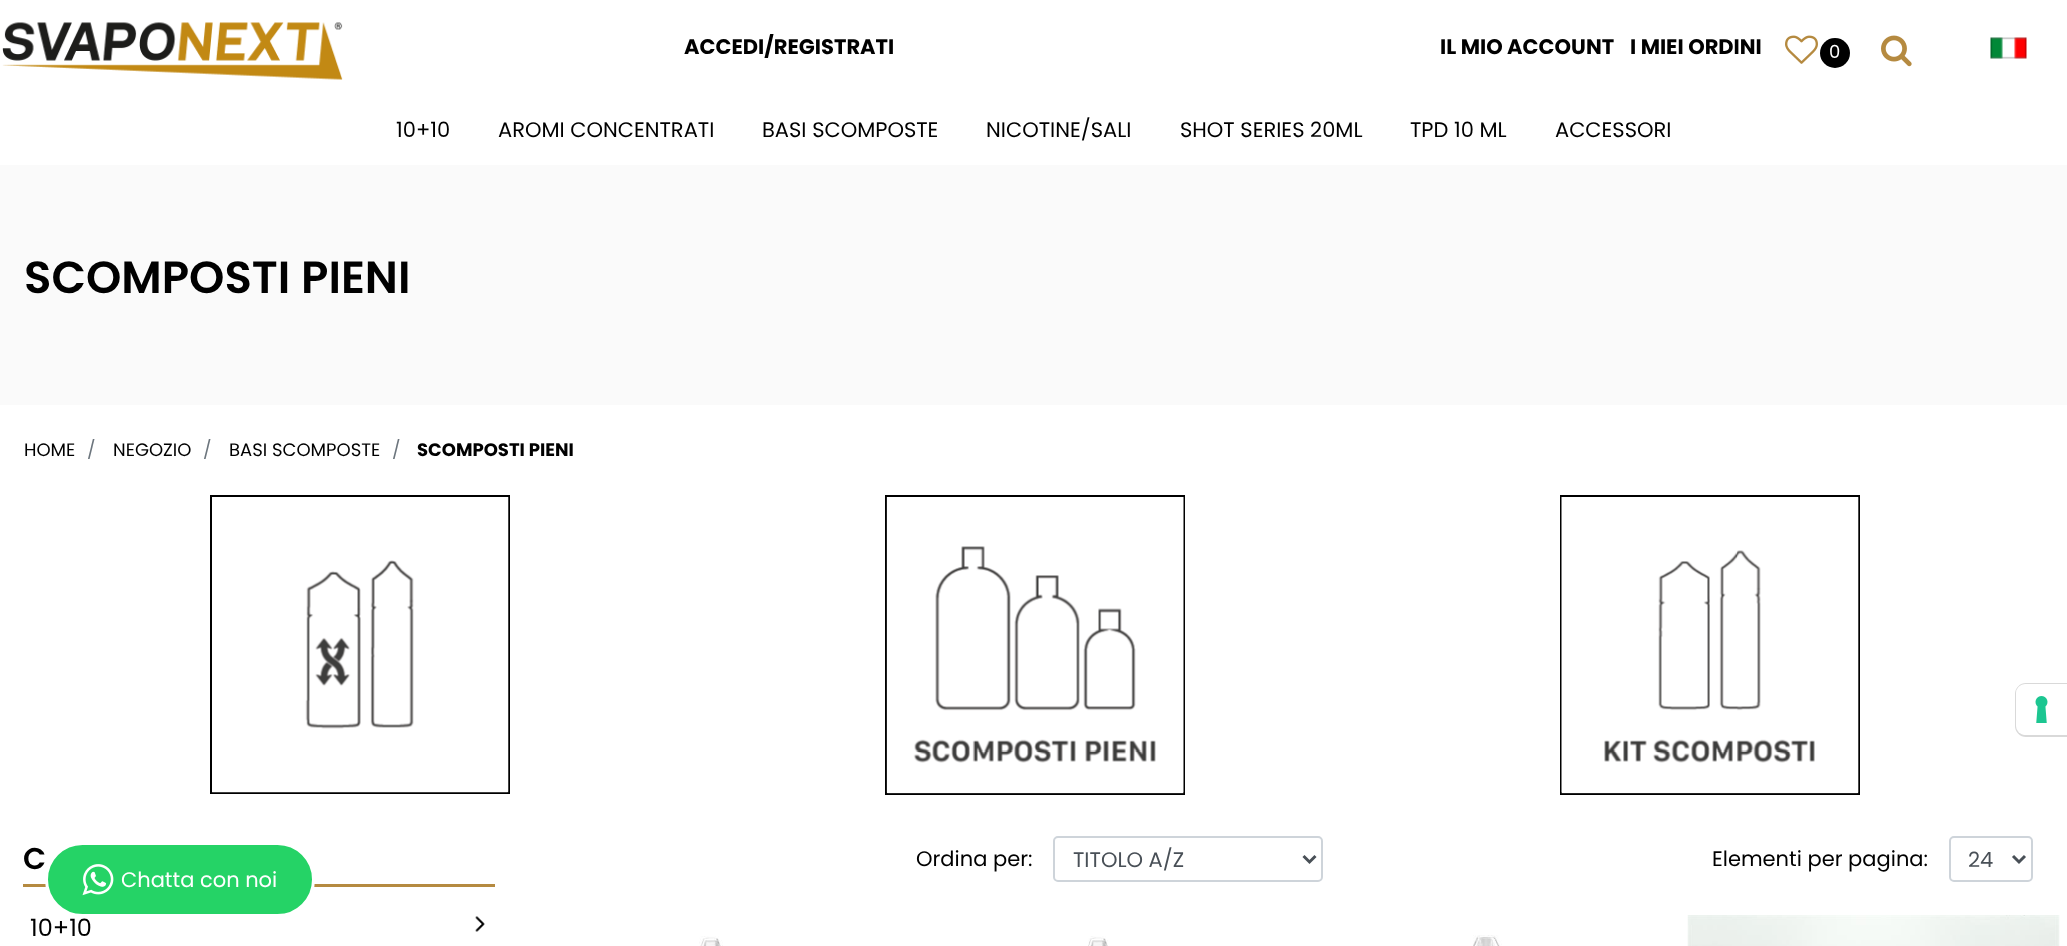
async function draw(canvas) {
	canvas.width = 2067;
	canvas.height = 946;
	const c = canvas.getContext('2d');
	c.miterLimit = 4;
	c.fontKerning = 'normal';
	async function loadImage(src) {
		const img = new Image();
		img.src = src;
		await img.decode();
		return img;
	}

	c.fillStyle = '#fff';
	c.fillRect(0, 0, 2067, 946);
	c.drawImage(await loadImage('img1.png'), 2, 22, 341, 58);
	c.font = 'bold 21px Poppins';
	c.fillStyle = '#000';
	for (const [text, x, y] of [
		['ACCEDI/REGISTRATI', 684, 54],
		['IL MIO ACCOUNT', 1440, 54],
		['I MIEI ORDINI', 1630, 54],
	]) {
		c.fillText(text, x, y);
	}
	c.drawImage(await loadImage('img2.png'), 1785, 35, 33, 29);
	c.beginPath();
	c.arc(1835, 53, 15, 0, 2 * Math.PI);
	c.fill();
	c.font = '18px Poppins';
	c.fillStyle = '#fff';
	c.fillText('0', 1829, 58);
	c.drawImage(await loadImage('img3.png'), 1881, 35, 31, 32);
	c.drawImage(await loadImage('img4.png'), 1990, 37, 37, 22);
	c.font = '21px Poppins';
	c.fillStyle = '#000';
	for (const [text, x, y] of [
		['10+10', 396, 137],
		['AROMI CONCENTRATI', 498, 137],
		['BASI SCOMPOSTE', 762, 137],
		['NICOTINE/SALI', 986, 137],
		['SHOT SERIES 20ML', 1180, 137],
		['TPD 10 ML', 1410, 137],
		['ACCESSORI', 1555, 137],
	]) {
		c.fillText(text, x, y);
	}
	c.fillStyle = '#fafafa';
	c.fillRect(0, 165, 2067, 240);
	c.font = '600 45px Poppins';
	c.fillStyle = '#000';
	c.fillText('SCOMPOSTI PIENI', 24, 293);
	c.font = '18px Poppins';
	c.fillText('HOME', 24, 456);
	c.fillStyle = '#6c757d';
	c.fillText('/', 87, 456);
	c.fillStyle = '#000';
	c.fillText('NEGOZIO', 113, 456);
	c.fillStyle = '#6c757d';
	c.fillText('/', 203, 456);
	c.fillStyle = '#000';
	c.fillText('BASI SCOMPOSTE', 229, 456);
	c.fillStyle = '#6c757d';
	c.fillText('/', 392, 456);
	c.font = 'bold 18px Poppins';
	c.fillStyle = '#000';
	c.fillText('SCOMPOSTI PIENI', 417, 456);
	c.strokeStyle = '#000';
	c.lineWidth = 2;
	c.strokeRect(211, 496, 298, 297);
	c.drawImage(await loadImage('img5.png'), 212, 497, 297, 296);
	c.strokeRect(886, 496, 298, 298);
	c.drawImage(await loadImage('img6.png'), 886, 497, 298, 297);
	c.strokeRect(1561, 496, 298, 298);
	c.drawImage(await loadImage('img7.png'), 1561, 497, 298, 297);
	c.fillStyle = '#b58a40';
	c.fillRect(23, 884, 472, 3);
	c.font = '600 30px Poppins';
	c.fillStyle = '#000';
	c.fillText('C', 23, 869);
	c.font = '24px Poppins';
	c.fillText('10+10', 30, 936);
	c.drawImage(await loadImage('img8.png'), 475, 916, 10, 16);
	c.font = '21px Poppins';
	c.fillText('Ordina per:', 916, 866);
	c.beginPath();
	c.roundRect(1054, 837, 268, 44, 4);
	c.strokeStyle = '#ced4da';
	c.stroke();
	c.beginPath();
	c.moveTo(1303.5, 856);
	c.lineTo(1309.5, 862);
	c.lineTo(1315.5, 856);
	c.strokeStyle = '#495057';
	c.lineWidth = 3;
	c.stroke();
	c.fillStyle = '#495057';
	c.fillText('TITOLO A/Z', 1073, 867);
	c.fillStyle = '#000';
	c.fillText('Elementi per pagina:', 1712, 866);
	c.beginPath();
	c.roundRect(1950, 837, 82, 44, 4);
	c.strokeStyle = '#ced4da';
	c.lineWidth = 2;
	c.stroke();
	c.beginPath();
	c.moveTo(2013, 856);
	c.lineTo(2019, 862);
	c.lineTo(2025, 856);
	c.strokeStyle = '#495057';
	c.lineWidth = 3;
	c.stroke();
	c.fillStyle = '#495057';
	c.fillText('24', 1968, 867);
	c.drawImage(await loadImage('img9.png'), 699, 936, 24, 10);
	c.drawImage(await loadImage('img10.png'), 1088, 936, 20, 10);
	c.drawImage(await loadImage('img11.png'), 1473, 935, 29, 11);
	c.drawImage(await loadImage('img12.png'), 1687, 915, 373, 31);
	c.fillStyle = '#25d366';
	c.beginPath();
	c.roundRect(46.5, 843.5, 267, 72, 36);
	c.fill();
	c.strokeStyle = '#fff';
	c.stroke();
	c.drawImage(await loadImage('img13.png'), 82, 864, 32, 32);
	c.fillStyle = '#fff';
	c.fillText('Chatta con noi', 121, 887);
	c.beginPath();
	c.moveTo(2026, 684);
	c.lineTo(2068, 684);
	c.lineTo(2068, 736);
	c.lineTo(2026, 736);
	c.bezierCurveTo(2020.5, 736, 2016, 731.5, 2016, 726);
	c.lineTo(2016, 694);
	c.bezierCurveTo(2016, 688.5, 2020.5, 684, 2026, 684);
	c.closePath();
	c.strokeStyle = '#d9d9d9';
	c.lineWidth = 2;
	c.stroke();
	c.beginPath();
	c.roundRect(2016, 684, 51, 51, [9, 0, 0, 9]);
	c.fill();
	c.drawImage(await loadImage('img14.png'), 2035, 696, 13, 27);
}

draw(document.querySelector('canvas'));
